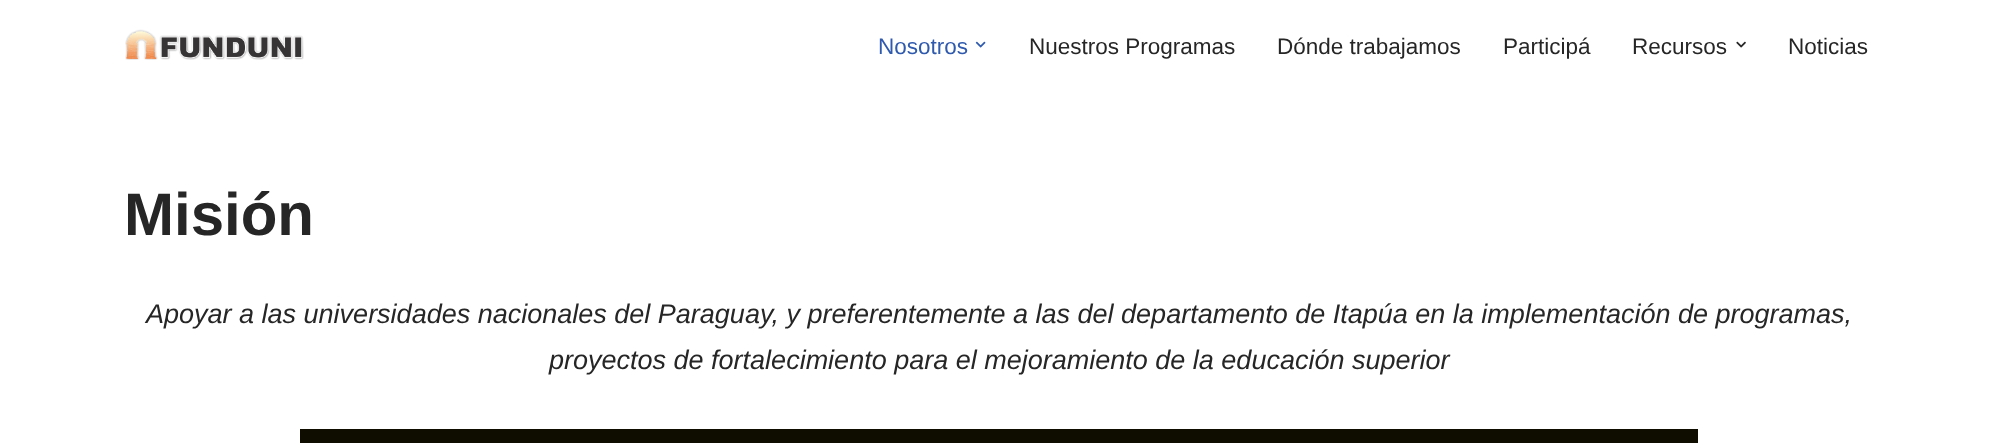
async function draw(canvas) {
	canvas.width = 1998;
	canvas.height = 443;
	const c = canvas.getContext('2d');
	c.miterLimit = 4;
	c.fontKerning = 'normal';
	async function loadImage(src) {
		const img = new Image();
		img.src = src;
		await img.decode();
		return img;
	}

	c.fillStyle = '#fff';
	c.fillRect(0, 0, 1998, 443);
	c.drawImage(await loadImage('img1.png'), 125, 29, 179, 31);
	c.font = '22.5px Liberation Sans';
	c.fillStyle = '#2f5aae';
	c.fillText('Nosotros', 878, 54);
	c.drawImage(await loadImage('img2.png'), 975, 41, 11, 7);
	c.fillStyle = '#272626';
	for (const [text, x, y] of [
		['Nuestros Programas', 1029, 54],
		['Dónde trabajamos', 1277, 54],
		['Participá', 1503, 54],
		['Recursos', 1632, 54],
	]) {
		c.fillText(text, x, y);
	}
	c.drawImage(await loadImage('img3.png'), 1736, 41, 10, 7);
	c.fillText('Noticias', 1788, 54);
	c.font = 'bold 60px Liberation Sans';
	c.fillText('Misión', 124, 235);
	c.font = 'italic 27px Liberation Sans';
	c.fillText('Apoyar a las universidades nacionales del Paraguay, y preferentemente a las del departamento de Itapúa en la implementación de programas,', 146, 323);
	c.fillText('proyectos de fortalecimiento para el mejoramiento de la educación superior', 549, 369);
	c.fillStyle = '#0f0d00';
	c.fillRect(300, 429, 1398, 14);
}

draw(document.querySelector('canvas'));
